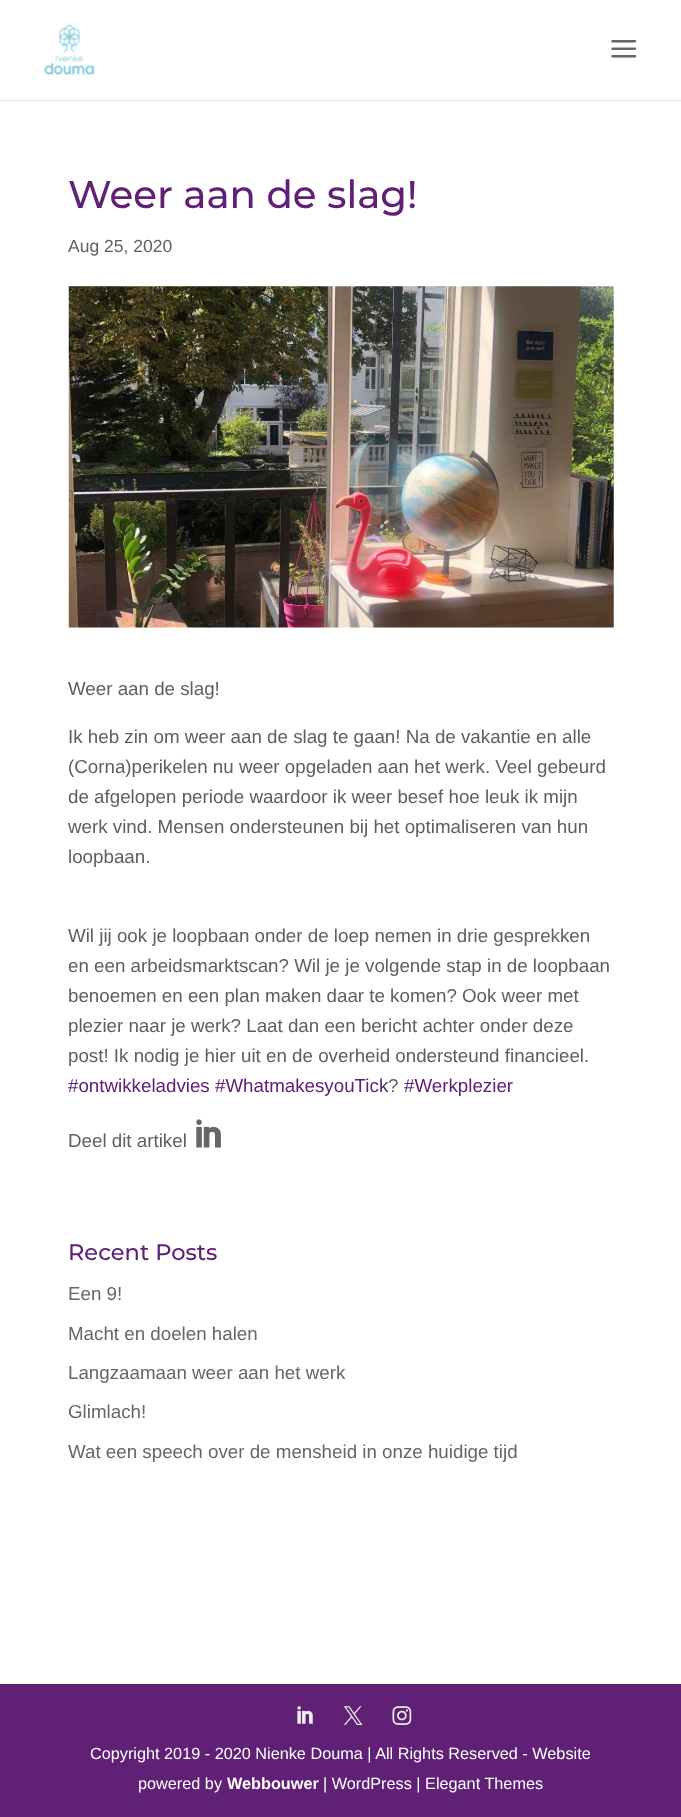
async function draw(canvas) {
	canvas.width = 681;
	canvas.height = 1817;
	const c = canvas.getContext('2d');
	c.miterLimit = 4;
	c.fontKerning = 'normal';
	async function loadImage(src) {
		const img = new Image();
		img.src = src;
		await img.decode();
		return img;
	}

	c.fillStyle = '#fff';
	c.fillRect(0, 0, 681, 1817);
	c.fillStyle = '#e6e6e6';
	c.fillRect(0, 100, 681, 1);
	c.drawImage(await loadImage('img1.png'), 44, 24, 51, 51);
	c.drawImage(await loadImage('img2.png'), 611, 40, 26, 18);
	c.font = '100 38.75px Montserrat';
	c.fillStyle = '#5f2076';
	c.fillText('Weer aan de slag!', 68, 208);
	c.font = '17.5px Liberation Sans';
	c.fillStyle = '#5e5e5e';
	c.fillText('Aug 25, 2020', 68, 252);
	c.drawImage(await loadImage('img3.png'), 68, 286, 546, 342);
	c.font = '18.75px Liberation Sans';
	for (const [text, x, y] of [
		['Weer aan de slag!', 68, 695],
		['Ik heb zin om weer aan de slag te gaan! Na de vakantie en alle', 68, 743],
		['(Corna)perikelen nu weer opgeladen aan het werk. Veel gebeurd', 68, 773],
		['de afgelopen periode waardoor ik weer besef hoe leuk ik mijn', 68, 803],
		['werk vind. Mensen ondersteunen bij het optimaliseren van hun', 68, 833],
		['loopbaan.', 68, 863],
		['Wil jij ook je loopbaan onder de loep nemen in drie gesprekken', 68, 942],
		['en een arbeidsmarktscan? Wil je je volgende stap in de loopbaan', 68, 972],
		['benoemen en een plan maken daar te komen? Ook weer met', 68, 1002],
		['plezier naar je werk? Laat dan een bericht achter onder deze', 68, 1032],
		['post! Ik nodig je hier uit en de overheid ondersteund financieel.', 68, 1062],
	]) {
		c.fillText(text, x, y);
	}
	c.fillStyle = '#5f2076';
	c.fillText('#ontwikkeladvies #WhatmakesyouTick', 68, 1092);
	c.fillStyle = '#5e5e5e';
	c.fillText('?', 388, 1092);
	c.fillStyle = '#5f2076';
	c.fillText('#Werkplezier', 404, 1092);
	c.fillStyle = '#5e5e5e';
	c.fillText('Deel dit artikel', 68, 1147);
	c.drawImage(await loadImage('img4.png'), 196, 1119, 25, 29);
	c.font = '100 22.5px Montserrat';
	c.fillStyle = '#5f2076';
	c.fillText('Recent Posts', 68, 1260);
	c.font = '18.75px Liberation Sans';
	c.fillStyle = '#666';
	for (const [text, x, y] of [
		['Een 9!', 68, 1300],
		['Macht en doelen halen', 68, 1340],
		['Langzaamaan weer aan het werk', 68, 1379],
		['Glimlach!', 68, 1418],
		['Wat een speech over de mensheid in onze huidige tijd', 68, 1458],
	]) {
		c.fillText(text, x, y);
	}
	c.fillStyle = '#5f2076';
	c.fillRect(0, 1684, 681, 133);
	c.drawImage(await loadImage('img5.png'), 297, 1706, 16, 18);
	c.drawImage(await loadImage('img6.png'), 343, 1706, 20, 19);
	c.drawImage(await loadImage('img7.png'), 392, 1706, 20, 19);
	c.font = '16.25px Liberation Sans';
	c.fillStyle = '#fff';
	c.fillText('Copyright 2019 - 2020 Nienke Douma | All Rights Reserved - Website', 90, 1759);
	c.fillText('powered by', 138, 1789);
	c.font = 'bold 16.25px Liberation Sans';
	c.fillText('Webbouwer', 227, 1789);
	c.font = '16.25px Liberation Sans';
	c.fillText('| WordPress | Elegant Themes', 323, 1789);
}

draw(document.querySelector('canvas'));
